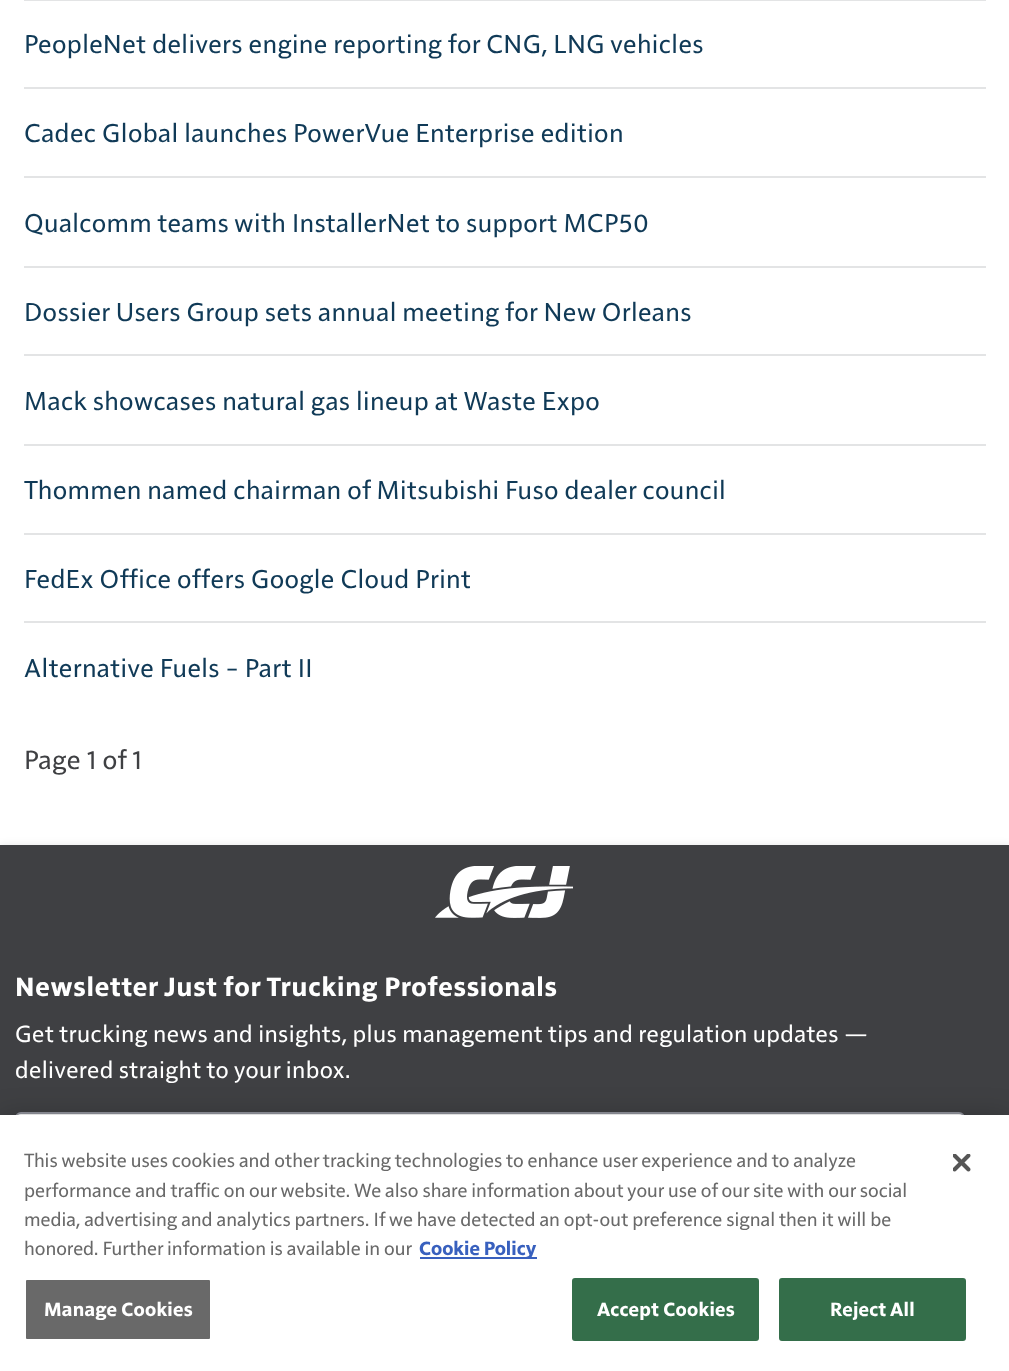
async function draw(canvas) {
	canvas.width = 1009;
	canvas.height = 1371;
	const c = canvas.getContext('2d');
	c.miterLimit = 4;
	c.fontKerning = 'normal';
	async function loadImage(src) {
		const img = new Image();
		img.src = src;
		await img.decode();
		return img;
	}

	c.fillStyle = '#fff';
	c.fillRect(0, 0, 1009, 1371);
	c.fillStyle = '#e3e4e5';
	c.fillRect(24, 0, 962, 1);
	c.fillRect(24, 87, 962, 2);
	c.letterSpacing = '0.38px';
	c.font = '26.4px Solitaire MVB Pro';
	c.fillStyle = '#103a57';
	c.fillText('PeopleNet delivers engine reporting for CNG, LNG vehicles', 24, 53);
	c.fillStyle = '#e3e4e5';
	c.fillRect(24, 176, 962, 2);
	c.fillStyle = '#103a57';
	c.fillText('Cadec Global launches PowerVue Enterprise edition', 24, 142);
	c.fillStyle = '#e3e4e5';
	c.fillRect(24, 266, 962, 2);
	c.fillStyle = '#103a57';
	c.fillText('Qualcomm teams with InstallerNet to support MCP50', 24, 232);
	c.fillStyle = '#e3e4e5';
	c.fillRect(24, 354, 962, 2);
	c.fillStyle = '#103a57';
	c.fillText('Dossier Users Group sets annual meeting for New Orleans', 24, 321);
	c.fillStyle = '#e3e4e5';
	c.fillRect(24, 444, 962, 2);
	c.fillStyle = '#103a57';
	c.fillText('Mack showcases natural gas lineup at Waste Expo', 24, 410);
	c.fillStyle = '#e3e4e5';
	c.fillRect(24, 533, 962, 2);
	c.fillStyle = '#103a57';
	c.fillText('Thommen named chairman of Mitsubishi Fuso dealer council', 24, 499);
	c.fillStyle = '#e3e4e5';
	c.fillRect(24, 621, 962, 2);
	c.fillStyle = '#103a57';
	c.fillText('FedEx Office offers Google Cloud Print', 24, 588);
	c.fillText('Alternative Fuels – Part II', 24, 677);
	c.font = '27px Solitaire MVB Pro';
	c.fillStyle = '#3f4043';
	c.fillText('Page 1 of 1', 24, 769);
	c.fillStyle = '#0000001f';
	c.filter = 'blur(4px)';
	c.beginPath();
	c.rect(0, 846, 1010, 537);
	c.fill();
	c.filter = 'none';
	c.fillStyle = '#3f4043';
	c.fillRect(0, 845, 1009, 270);
	c.drawImage(await loadImage('img1.png'), 435, 866, 138, 52);
	c.letterSpacing = '0.75px';
	c.font = 'bold 27px Solitaire MVB Pro';
	c.fillStyle = '#fff';
	c.fillText('Newsletter Just for Trucking Professionals', 15, 996);
	c.letterSpacing = '0.38px';
	c.font = '24px Solitaire MVB Pro';
	c.fillText('Get trucking news and insights, plus management tips and regulation updates —', 15, 1042);
	c.fillText('delivered straight to your inbox.', 15, 1078);
	c.fillStyle = '#f8f8f8';
	c.beginPath();
	c.roundRect(16, 1113, 948, 70, 5);
	c.fill();
	c.strokeStyle = '#91939c';
	c.lineWidth = 2;
	c.stroke();
	c.fillStyle = '#00000033';
	c.filter = 'blur(13.5px)';
	c.beginPath();
	c.rect(0, 1115, 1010, 256);
	c.fill();
	c.filter = 'none';
	c.fillStyle = '#fff';
	c.fillRect(0, 1115, 1009, 256);
	c.letterSpacing = '0px';
	c.font = '19.5px Solitaire MVB Pro';
	c.fillStyle = '#696969';
	for (const [text, x, y] of [
		['This website uses cookies and other tracking technologies to enhance user experience and to analyze', 24, 1167],
		['performance and traffic on our website. We also share information about your use of our site with our social', 24, 1197],
		['media, advertising and analytics partners. If we have detected an opt-out preference signal then it will be', 24, 1226],
		['honored. Further information is available in our', 24, 1255],
	]) {
		c.fillText(text, x, y);
	}
	c.fillStyle = '#3860be';
	c.fillRect(420, 1257, 117, 2);
	c.font = 'bold 19.5px Solitaire MVB Pro';
	c.fillText('Cookie Policy', 419, 1255);
	c.fillStyle = '#696969';
	c.beginPath();
	c.roundRect(25, 1279, 186, 61, 2);
	c.fill();
	c.strokeStyle = '#fff';
	c.stroke();
	c.letterSpacing = '0.25px';
	c.fillStyle = '#fff';
	c.fillText('Manage Cookies', 44, 1316);
	c.fillStyle = '#346e4a';
	c.beginPath();
	c.roundRect(573, 1279, 185, 61, 2);
	c.fill();
	c.strokeStyle = '#346e4a';
	c.stroke();
	c.fillStyle = '#fff';
	c.fillText('Accept Cookies', 597, 1316);
	c.fillStyle = '#346e4a';
	c.beginPath();
	c.roundRect(780, 1279, 185, 61, 2);
	c.fill();
	c.stroke();
	c.fillStyle = '#fff';
	c.fillText('Reject All', 830, 1316);
	c.drawImage(await loadImage('img2.png'), 953, 1154, 18, 18);
}

draw(document.querySelector('canvas'));
